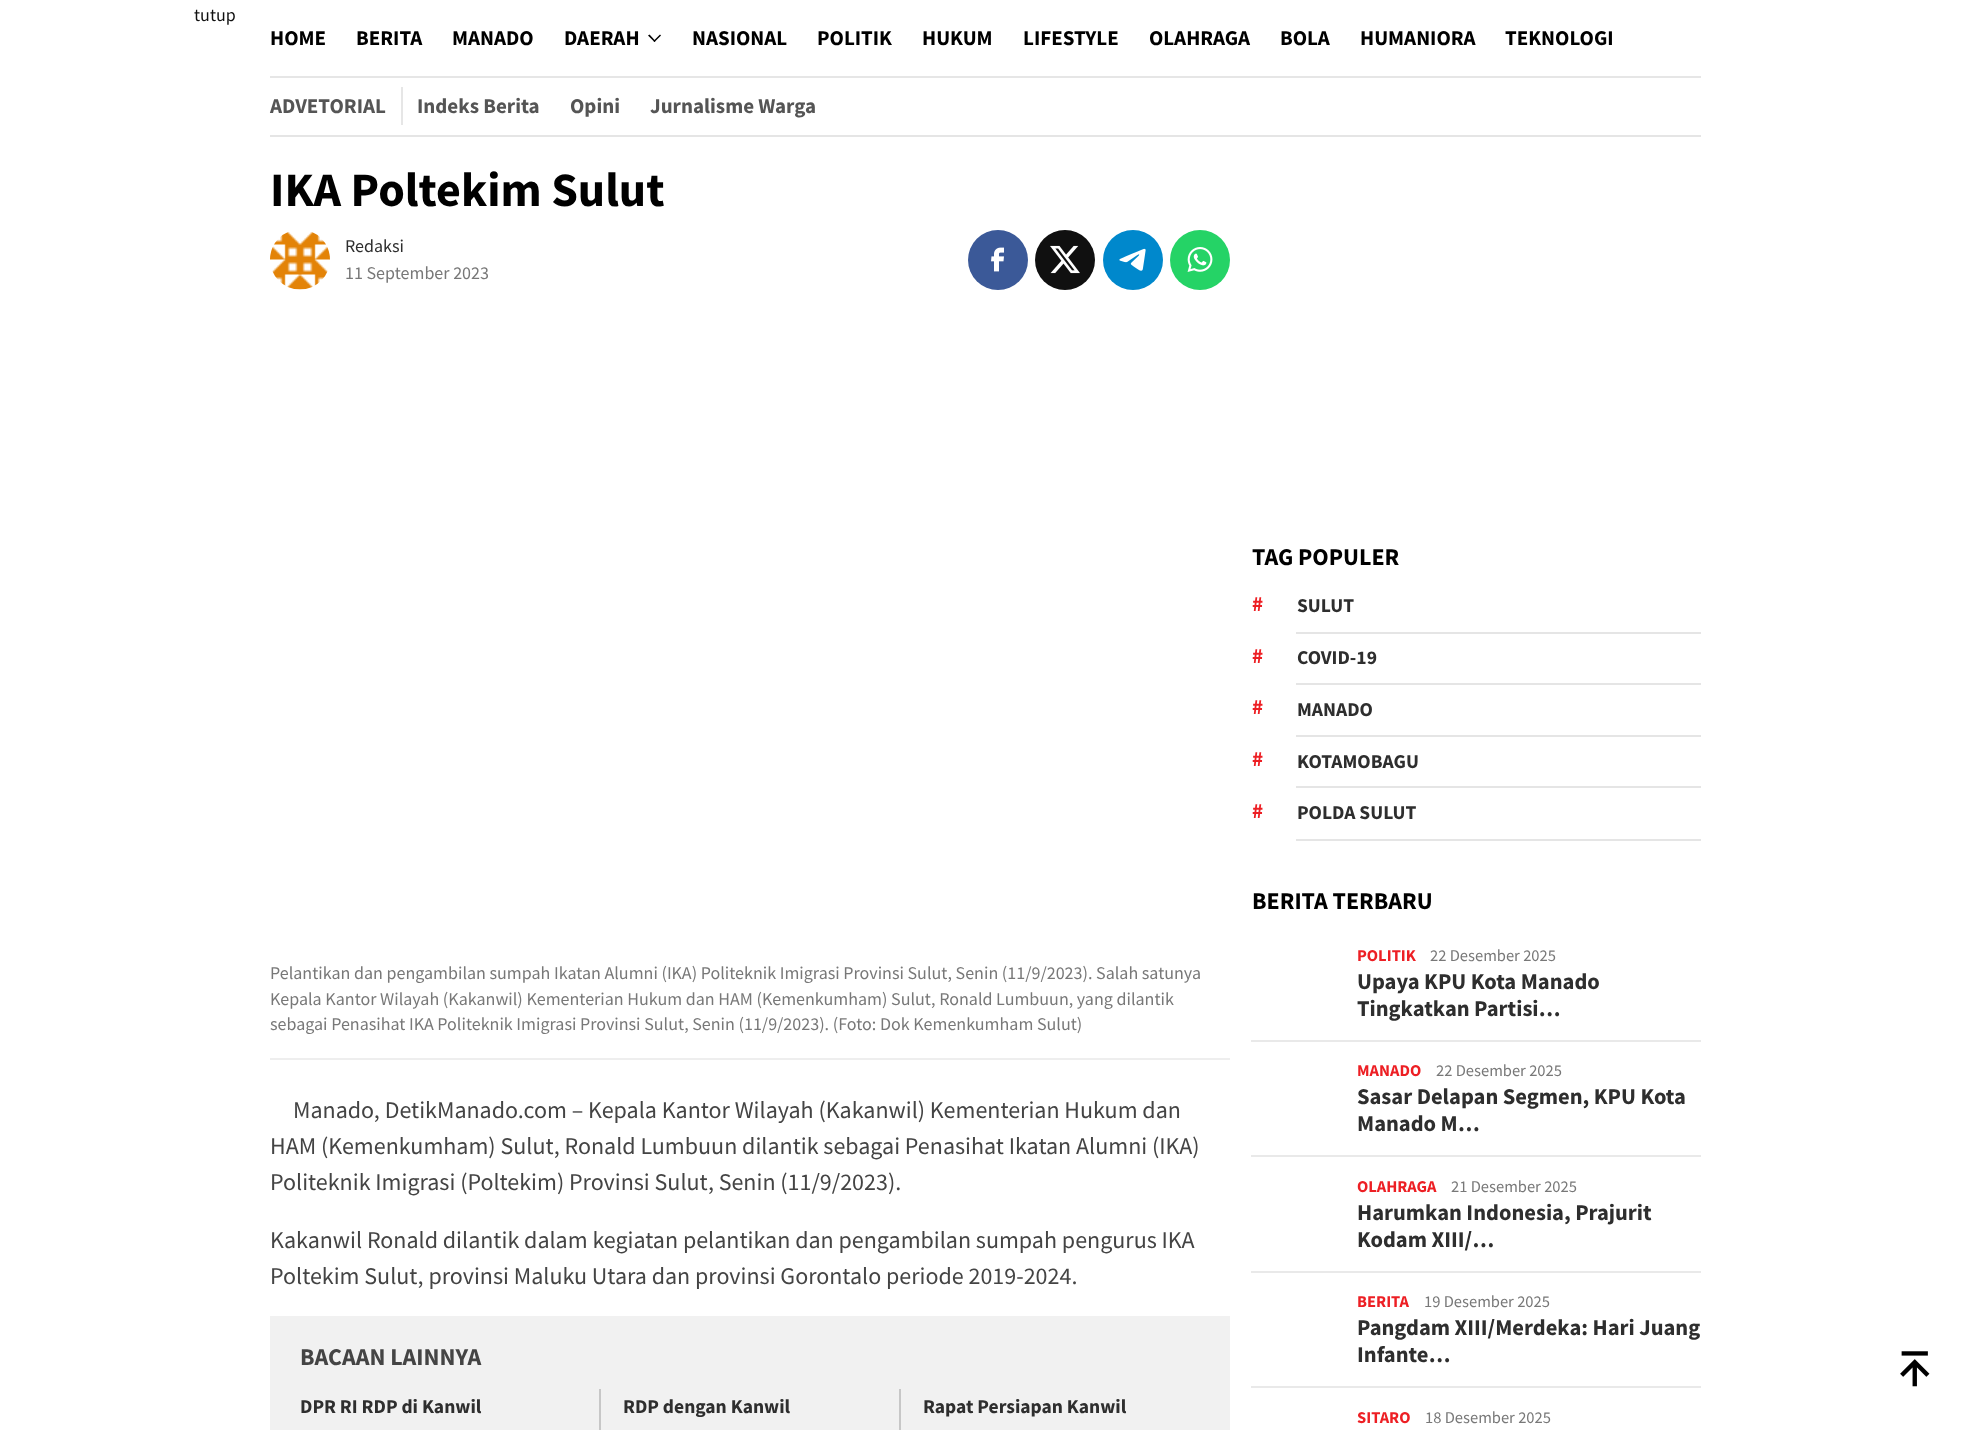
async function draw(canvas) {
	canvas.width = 1971;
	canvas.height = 1430;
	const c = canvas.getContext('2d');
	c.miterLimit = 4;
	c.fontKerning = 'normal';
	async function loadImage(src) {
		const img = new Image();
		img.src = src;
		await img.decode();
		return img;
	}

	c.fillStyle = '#fff';
	c.fillRect(0, 0, 1971, 1430);
	c.font = '18px Source Sans Pro';
	c.fillStyle = '#111';
	c.fillText('tutup', 194, 21);
	c.fillStyle = '#e6e6e6';
	c.fillRect(270, 76, 1431, 2);
	c.font = 'bold 21px Source Sans Pro';
	c.fillStyle = '#000';
	for (const [text, x, y] of [
		['HOME', 270, 45],
		['BERITA', 356, 45],
		['MANADO', 452, 45],
		['DAERAH', 564, 45],
	]) {
		c.fillText(text, x, y);
	}
	c.beginPath();
	c.moveTo(660, 34.5);
	c.lineTo(661, 35.5);
	c.lineTo(654.5, 42);
	c.lineTo(653.5, 41);
	c.closePath();
	c.fill();
	c.beginPath();
	c.moveTo(649.5, 34.5);
	c.lineTo(655.5, 41);
	c.lineTo(654.5, 42);
	c.lineTo(648, 35.5);
	c.closePath();
	c.fill();
	for (const [text, x, y] of [
		['NASIONAL', 692, 45],
		['POLITIK', 817, 45],
		['HUKUM', 922, 45],
		['LIFESTYLE', 1023, 45],
		['OLAHRAGA', 1149, 45],
		['BOLA', 1280, 45],
		['HUMANIORA', 1360, 45],
		['TEKNOLOGI', 1505, 45],
	]) {
		c.fillText(text, x, y);
	}
	c.fillStyle = '#0000001a';
	c.fillRect(270, 135, 1431, 2);
	c.fillStyle = '#e6e6e6';
	c.fillRect(401, 87, 2, 38);
	c.fillStyle = '#555';
	for (const [text, x, y] of [
		['ADVETORIAL', 270, 113],
		['Indeks Berita', 417, 113],
		['Opini', 570, 113],
		['Jurnalisme Warga', 650, 113],
	]) {
		c.fillText(text, x, y);
	}
	c.font = 'bold 48px Source Sans Pro';
	c.fillStyle = '#000';
	c.fillText('IKA Poltekim Sulut', 270, 206);
	c.drawImage(await loadImage('img1.png'), 270, 231, 60, 59);
	c.font = '18px Source Sans Pro';
	c.fillStyle = '#2e2e2e';
	c.fillText('Redaksi', 345, 252);
	c.fillStyle = '#787878';
	c.fillText('11 September 2023', 345, 279);
	c.fillStyle = '#3b5998';
	c.beginPath();
	c.arc(998, 260, 30, 0, 2 * Math.PI);
	c.fill();
	c.drawImage(await loadImage('img2.png'), 991, 247, 13, 25);
	c.fillStyle = '#101010';
	c.beginPath();
	c.arc(1065, 260, 30, 0, 2 * Math.PI);
	c.fill();
	c.drawImage(await loadImage('img3.png'), 1050, 245, 30, 29);
	c.fillStyle = '#08c';
	c.beginPath();
	c.arc(1133, 260, 30, 0, 2 * Math.PI);
	c.fill();
	c.drawImage(await loadImage('img4.png'), 1119, 248, 27, 23);
	c.fillStyle = '#25d366';
	c.beginPath();
	c.arc(1200, 260, 30, 0, 2 * Math.PI);
	c.fill();
	c.drawImage(await loadImage('img5.png'), 1187, 247, 26, 25);
	c.fillStyle = '#eee';
	c.fillRect(270, 1058, 960, 2);
	c.fillStyle = '#787878';
	for (const [text, x, y] of [
		['Pelantikan dan pengambilan sumpah Ikatan Alumni (IKA) Politeknik Imigrasi Provinsi Sulut, Senin (11/9/2023). Salah satunya', 270, 979],
		['Kepala Kantor Wilayah (Kakanwil) Kementerian Hukum dan HAM (Kemenkumham) Sulut, Ronald Lumbuun, yang dilantik', 270, 1005],
		['sebagai Penasihat IKA Politeknik Imigrasi Provinsi Sulut, Senin (11/9/2023). (Foto: Dok Kemenkumham Sulut)', 270, 1030],
	]) {
		c.fillText(text, x, y);
	}
	c.font = '24px Source Sans Pro';
	c.fillStyle = '#444';
	for (const [text, x, y] of [
		['Manado, DetikManado.com – Kepala Kantor Wilayah (Kakanwil) Kementerian Hukum dan', 293, 1118],
		['HAM (Kemenkumham) Sulut, Ronald Lumbuun dilantik sebagai Penasihat Ikatan Alumni (IKA)', 270, 1154],
		['Politeknik Imigrasi (Poltekim) Provinsi Sulut, Senin (11/9/2023).', 270, 1190],
		['Kakanwil Ronald dilantik dalam kegiatan pelantikan dan pengambilan sumpah pengurus IKA', 270, 1248],
		['Poltekim Sulut, provinsi Maluku Utara dan provinsi Gorontalo periode 2019-2024.', 270, 1284],
	]) {
		c.fillText(text, x, y);
	}
	c.fillStyle = '#f1f1f1';
	c.fillRect(270, 1316, 960, 114);
	c.font = 'bold 24px Source Sans Pro';
	c.fillStyle = '#444';
	c.fillText('BACAAN LAINNYA', 300, 1365);
	c.fillStyle = '#c7c7c7';
	c.fillRect(599, 1389, 2, 41);
	c.font = 'bold 19.5px Source Sans Pro';
	c.fillStyle = '#2e2e2e';
	c.fillText('DPR RI RDP di Kanwil', 300, 1413);
	c.fillStyle = '#c7c7c7';
	c.fillRect(899, 1389, 2, 41);
	c.fillStyle = '#2e2e2e';
	c.fillText('RDP dengan Kanwil', 623, 1413);
	c.fillText('Rapat Persiapan Kanwil', 923, 1413);
	c.font = 'bold 24px Source Sans Pro';
	c.fillStyle = '#000';
	c.fillText('TAG POPULER', 1252, 565);
	c.font = 'bold 21px Source Sans Pro';
	c.fillStyle = '#ed1f24';
	c.fillText('#', 1252, 611);
	c.fillStyle = '#e5e5e5';
	c.fillRect(1296, 632, 405, 2);
	c.font = 'bold 19.5px Source Sans Pro';
	c.fillStyle = '#2e2e2e';
	c.fillText('SULUT', 1297, 612);
	c.font = 'bold 21px Source Sans Pro';
	c.fillStyle = '#ed1f24';
	c.fillText('#', 1252, 663);
	c.fillStyle = '#e5e5e5';
	c.fillRect(1296, 683, 405, 2);
	c.font = 'bold 19.5px Source Sans Pro';
	c.fillStyle = '#2e2e2e';
	c.fillText('COVID-19', 1297, 664);
	c.font = 'bold 21px Source Sans Pro';
	c.fillStyle = '#ed1f24';
	c.fillText('#', 1252, 714);
	c.fillStyle = '#e5e5e5';
	c.fillRect(1296, 735, 405, 2);
	c.font = 'bold 19.5px Source Sans Pro';
	c.fillStyle = '#2e2e2e';
	c.fillText('MANADO', 1297, 716);
	c.font = 'bold 21px Source Sans Pro';
	c.fillStyle = '#ed1f24';
	c.fillText('#', 1252, 766);
	c.fillStyle = '#e5e5e5';
	c.fillRect(1296, 786, 405, 2);
	c.font = 'bold 19.5px Source Sans Pro';
	c.fillStyle = '#2e2e2e';
	c.fillText('KOTAMOBAGU', 1297, 768);
	c.font = 'bold 21px Source Sans Pro';
	c.fillStyle = '#ed1f24';
	c.fillText('#', 1252, 818);
	c.fillStyle = '#e5e5e5';
	c.fillRect(1296, 839, 405, 2);
	c.font = 'bold 19.5px Source Sans Pro';
	c.fillStyle = '#2e2e2e';
	c.fillText('POLDA SULUT', 1297, 819);
	c.font = 'bold 24px Source Sans Pro';
	c.fillStyle = '#000';
	c.fillText('BERITA TERBARU', 1252, 909);
	c.fillStyle = '#e9e9e9';
	c.fillRect(1251, 1040, 450, 2);
	c.font = 'bold 16.5px Source Sans Pro';
	c.fillStyle = '#ed1f24';
	c.fillText('POLITIK', 1357, 961);
	c.font = '16.5px Source Sans Pro';
	c.fillStyle = '#787878';
	c.fillText('22 Desember 2025', 1430, 961);
	c.font = 'bold 22.5px Source Sans Pro';
	c.fillStyle = '#2e2e2e';
	c.fillText('Upaya KPU Kota Manado', 1357, 989);
	c.fillText('Tingkatkan Partisi…', 1357, 1016);
	c.fillStyle = '#e9e9e9';
	c.fillRect(1251, 1155, 450, 2);
	c.font = 'bold 16.5px Source Sans Pro';
	c.fillStyle = '#ed1f24';
	c.fillText('MANADO', 1357, 1076);
	c.font = '16.5px Source Sans Pro';
	c.fillStyle = '#787878';
	c.fillText('22 Desember 2025', 1436, 1076);
	c.font = 'bold 22.5px Source Sans Pro';
	c.fillStyle = '#2e2e2e';
	c.fillText('Sasar Delapan Segmen, KPU Kota', 1357, 1104);
	c.fillText('Manado M…', 1357, 1131);
	c.fillStyle = '#e9e9e9';
	c.fillRect(1251, 1271, 450, 2);
	c.font = 'bold 16.5px Source Sans Pro';
	c.fillStyle = '#ed1f24';
	c.fillText('OLAHRAGA', 1357, 1192);
	c.font = '16.5px Source Sans Pro';
	c.fillStyle = '#787878';
	c.fillText('21 Desember 2025', 1451, 1192);
	c.font = 'bold 22.5px Source Sans Pro';
	c.fillStyle = '#2e2e2e';
	c.fillText('Harumkan Indonesia, Prajurit', 1357, 1220);
	c.fillText('Kodam XIII/…', 1357, 1247);
	c.fillStyle = '#e9e9e9';
	c.fillRect(1251, 1386, 450, 2);
	c.font = 'bold 16.5px Source Sans Pro';
	c.fillStyle = '#ed1f24';
	c.fillText('BERITA', 1357, 1307);
	c.font = '16.5px Source Sans Pro';
	c.fillStyle = '#787878';
	c.fillText('19 Desember 2025', 1424, 1307);
	c.font = 'bold 22.5px Source Sans Pro';
	c.fillStyle = '#2e2e2e';
	c.fillText('Pangdam XIII/Merdeka: Hari Juang', 1357, 1335);
	c.fillText('Infante…', 1357, 1362);
	c.font = 'bold 16.5px Source Sans Pro';
	c.fillStyle = '#ed1f24';
	c.fillText('SITARO', 1357, 1423);
	c.font = '16.5px Source Sans Pro';
	c.fillStyle = '#787878';
	c.fillText('18 Desember 2025', 1425, 1423);
	c.drawImage(await loadImage('img6.png'), 1900, 1351, 30, 36);
}

draw(document.querySelector('canvas'));
